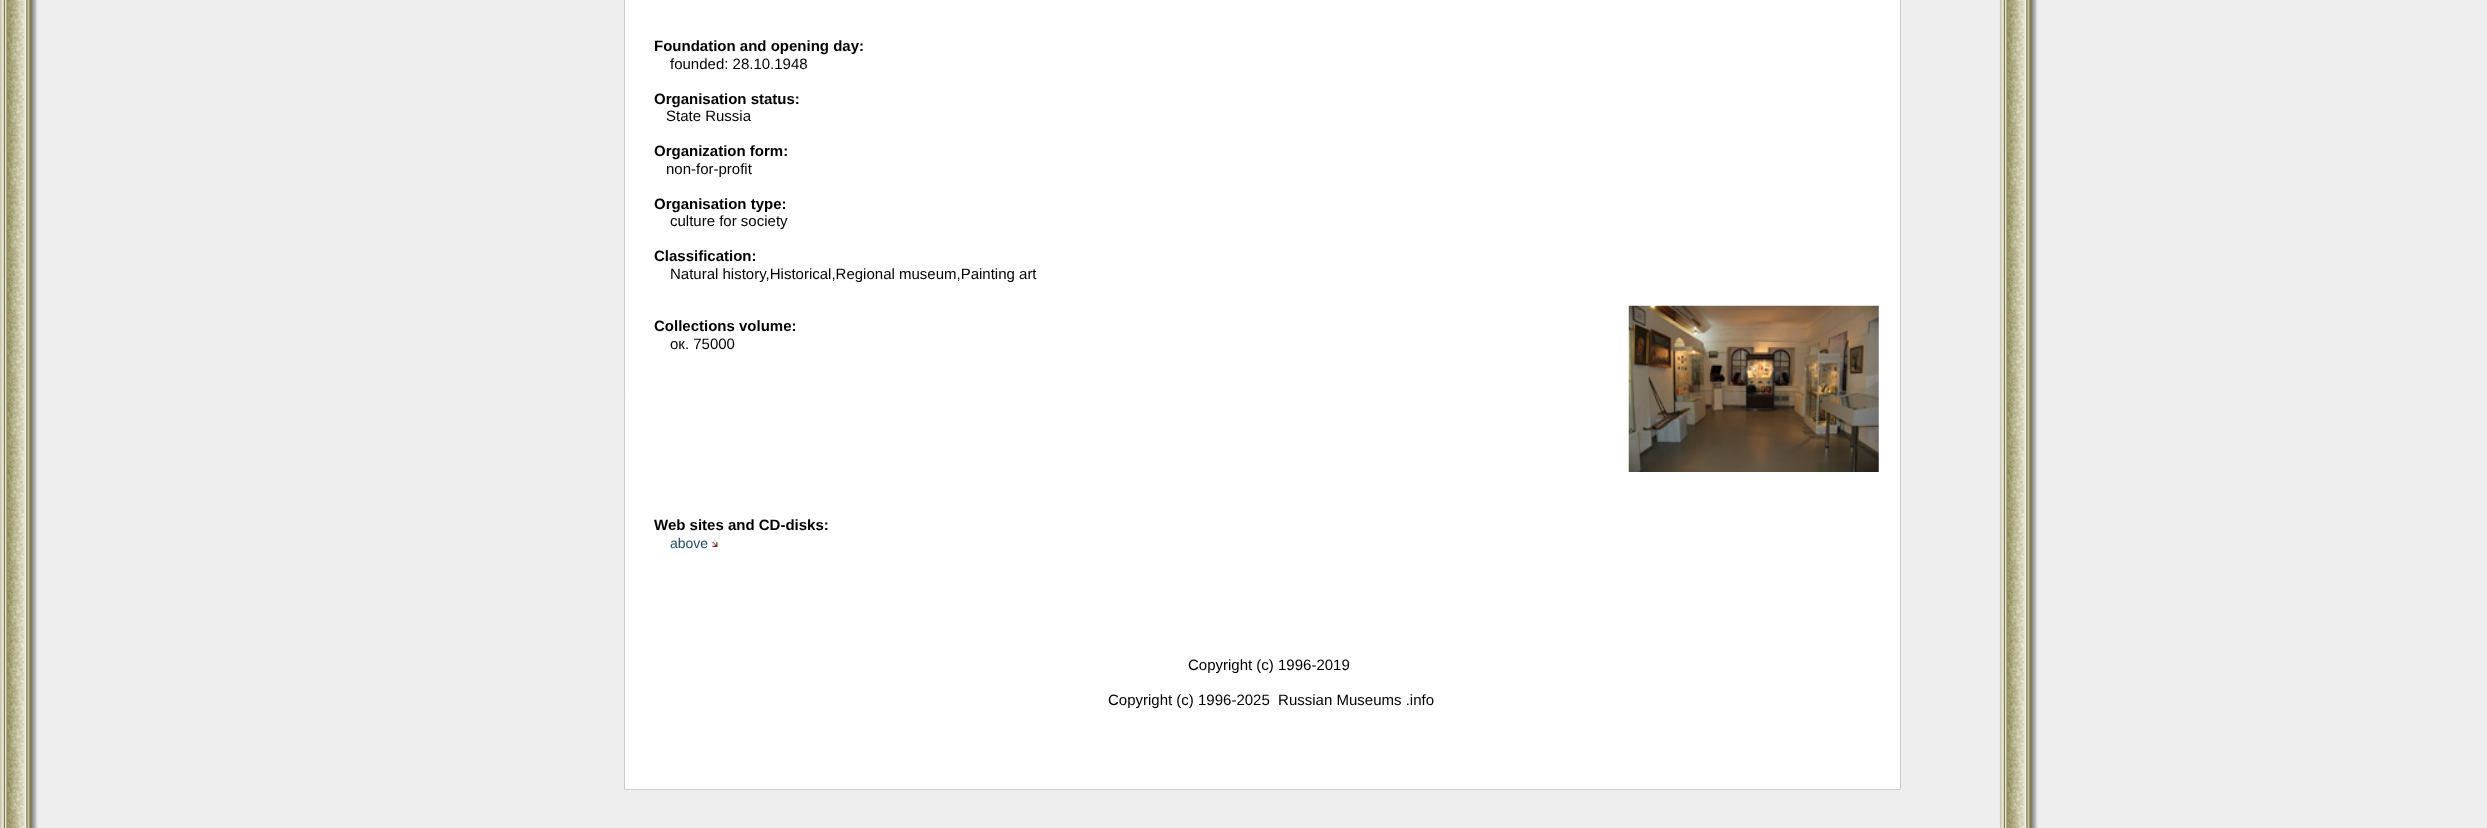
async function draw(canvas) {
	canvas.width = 2487;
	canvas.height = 828;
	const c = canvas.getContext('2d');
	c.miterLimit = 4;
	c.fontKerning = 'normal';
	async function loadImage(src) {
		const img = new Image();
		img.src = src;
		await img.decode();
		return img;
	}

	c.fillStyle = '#fff';
	c.fillRect(0, 0, 2487, 828);
	c.drawImage(await loadImage('img1.png'), 0, 0, 2487, 828);
	c.beginPath();
	c.rect(624.5, -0.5, 1276, 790);
	c.fill();
	c.strokeStyle = '#ccc';
	c.stroke();
	c.font = 'bold 15px Liberation Sans';
	c.fillStyle = '#000';
	c.fillText('Foundation and opening day:', 654, 51);
	c.font = '15px Liberation Sans';
	c.fillText('founded: 28.10.1948', 670, 69);
	c.font = 'bold 15px Liberation Sans';
	c.fillText('Organisation status:', 654, 104);
	c.font = '15px Liberation Sans';
	c.fillText('State Russia', 666, 121);
	c.font = 'bold 15px Liberation Sans';
	c.fillText('Organization form:', 654, 156);
	c.font = '15px Liberation Sans';
	c.fillText('non-for-profit', 666, 174);
	c.font = 'bold 15px Liberation Sans';
	c.fillText('Organisation type:', 654, 209);
	c.font = '15px Liberation Sans';
	c.fillText('culture for society', 670, 226);
	c.font = 'bold 15px Liberation Sans';
	c.fillText('Classification:', 654, 261);
	c.font = '15px Liberation Sans';
	c.fillText('Natural history,Historical,Regional museum,Painting art', 670, 279);
	c.font = 'bold 15px Liberation Sans';
	c.fillText('Collections volume:', 654, 331);
	c.drawImage(await loadImage('img2.png'), 1628, 305, 251, 167);
	c.font = '15px Liberation Sans';
	c.fillText('ок. 75000', 670, 349);
	c.font = 'bold 15px Liberation Sans';
	c.fillText('Web sites and CD-disks:', 654, 530);
	c.font = '14px Liberation Sans';
	c.fillStyle = '#1e4c6a';
	c.fillText('above', 670, 548);
	c.drawImage(await loadImage('img3.png'), 712, 541, 6, 6);
	c.font = '15px Liberation Sans';
	c.fillStyle = '#000';
	c.fillText('Copyright (c) 1996-2019', 1188, 670);
	c.fillText('Copyright (c) 1996-2025  Russian Museums .info', 1108, 705);
}

draw(document.querySelector('canvas'));
